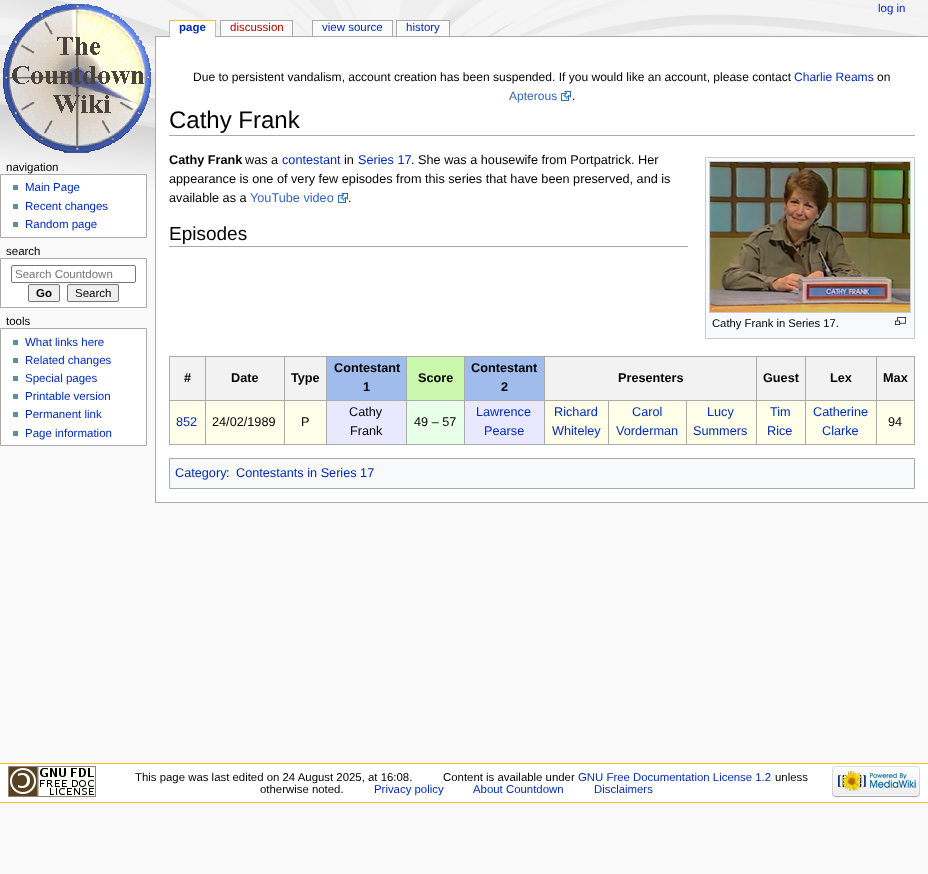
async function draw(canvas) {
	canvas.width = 928;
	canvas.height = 874;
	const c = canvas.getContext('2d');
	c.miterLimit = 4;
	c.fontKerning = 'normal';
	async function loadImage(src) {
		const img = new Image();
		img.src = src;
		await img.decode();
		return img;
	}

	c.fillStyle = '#f9f9f9';
	c.fillRect(0, 0, 928, 874);
	c.drawImage(await loadImage('img1.png'), 0, 0, 928, 210);
	c.drawImage(await loadImage('img2.png'), 3, 4, 148, 149);
	c.fillStyle = '#aaa';
	c.fillRect(155, 36, 773, 1);
	c.fillStyle = '#fff';
	c.fillRect(170, 21, 45, 16);
	c.font = 'bold 11.5px Liberation Sans';
	c.fillStyle = '#002bb8';
	c.fillText('page', 179, 31);
	for (const [x, y, w, h, color] of [
		[169, 20, 47, 1, '#fabd23'],
		[215, 20, 1, 16, '#fabd23'],
		[169, 20, 1, 16, '#fabd23'],
		[221, 21, 71, 15, '#fbfbfb'],
	]) {
		c.fillStyle = color;
		c.fillRect(x, y, w, h);
	}
	c.font = '11.5px Liberation Sans';
	c.fillStyle = '#ba0000';
	c.fillText('discussion', 230, 31);
	for (const [x, y, w, h, color] of [
		[220, 20, 73, 1, '#aaa'],
		[292, 20, 1, 16, '#aaa'],
		[220, 20, 1, 16, '#aaa'],
		[313, 21, 79, 15, '#fbfbfb'],
	]) {
		c.fillStyle = color;
		c.fillRect(x, y, w, h);
	}
	c.fillStyle = '#002bb8';
	c.fillText('view source', 322, 31);
	for (const [x, y, w, h, color] of [
		[312, 20, 81, 1, '#aaa'],
		[392, 20, 1, 16, '#aaa'],
		[312, 20, 1, 16, '#aaa'],
		[397, 21, 52, 15, '#fbfbfb'],
	]) {
		c.fillStyle = color;
		c.fillRect(x, y, w, h);
	}
	c.fillStyle = '#002bb8';
	c.fillText('history', 406, 31);
	for (const [x, y, w, h, color] of [
		[396, 20, 54, 1, '#aaa'],
		[449, 20, 1, 16, '#aaa'],
		[396, 20, 1, 16, '#aaa'],
	]) {
		c.fillStyle = color;
		c.fillRect(x, y, w, h);
	}
	c.fillStyle = '#002bb8';
	c.fillText('log in', 878, 12);
	c.fillStyle = '#000';
	c.fillText('navigation', 6, 171);
	c.fillStyle = '#fff';
	c.beginPath();
	c.rect(0.5, 174.5, 146, 63);
	c.fill();
	c.strokeStyle = '#aaa';
	c.stroke();
	c.fillStyle = '#638c9c';
	c.fillRect(13, 185, 5, 5);
	c.fillStyle = '#002bb8';
	c.fillText('Main Page', 25, 191);
	c.fillStyle = '#638c9c';
	c.fillRect(13, 204, 5, 5);
	c.fillStyle = '#002bb8';
	c.fillText('Recent changes', 25, 210);
	c.fillStyle = '#638c9c';
	c.fillRect(13, 222, 5, 5);
	c.fillStyle = '#002bb8';
	c.fillText('Random page', 25, 228);
	c.fillStyle = '#000';
	c.fillText('search', 6, 255);
	c.fillStyle = '#fff';
	c.beginPath();
	c.rect(0.5, 258.5, 146, 49);
	c.fill();
	c.stroke();
	c.beginPath();
	c.roundRect(11.5, 265.5, 124, 17, 1.5);
	c.strokeStyle = '#767676';
	c.stroke();
	c.fillStyle = '#757575';
	c.fillText('Search Countdown', 15, 278);
	c.fillStyle = '#efefef';
	c.beginPath();
	c.roundRect(28.5, 284.5, 31, 17, 1.5);
	c.fill();
	c.stroke();
	c.font = 'bold 11.5px Liberation Sans';
	c.fillStyle = '#000';
	c.fillText('Go', 36, 297);
	c.fillStyle = '#efefef';
	c.beginPath();
	c.roundRect(67.5, 284.5, 51, 17, 1.5);
	c.fill();
	c.stroke();
	c.font = '11.5px Liberation Sans';
	c.fillStyle = '#000';
	c.fillText('Search', 75, 297);
	c.fillText('tools', 6, 325);
	c.fillStyle = '#fff';
	c.beginPath();
	c.rect(0.5, 328.5, 146, 117);
	c.fill();
	c.strokeStyle = '#aaa';
	c.stroke();
	c.fillStyle = '#638c9c';
	c.fillRect(13, 340, 5, 5);
	c.fillStyle = '#002bb8';
	c.fillText('What links here', 25, 346);
	c.fillStyle = '#638c9c';
	c.fillRect(13, 358, 5, 5);
	c.fillStyle = '#002bb8';
	c.fillText('Related changes', 25, 364);
	c.fillStyle = '#638c9c';
	c.fillRect(13, 376, 5, 5);
	c.fillStyle = '#002bb8';
	c.fillText('Special pages', 25, 382);
	c.fillStyle = '#638c9c';
	c.fillRect(13, 394, 5, 5);
	c.fillStyle = '#002bb8';
	c.fillText('Printable version', 25, 400);
	c.fillStyle = '#638c9c';
	c.fillRect(13, 412, 5, 5);
	c.fillStyle = '#002bb8';
	c.fillText('Permanent link', 25, 418);
	c.fillStyle = '#638c9c';
	c.fillRect(13, 431, 5, 5);
	c.fillStyle = '#002bb8';
	c.fillText('Page information', 25, 437);
	for (const [x, y, w, h, color] of [
		[156, 37, 772, 465, '#fff'],
		[155, 502, 773, 1, '#aaa'],
		[155, 36, 1, 467, '#aaa'],
	]) {
		c.fillStyle = color;
		c.fillRect(x, y, w, h);
	}
	c.font = '12.05px Liberation Sans';
	c.fillStyle = '#000';
	c.fillText('Due to persistent vandalism, account creation has been suspended. If you would like an account, please contact', 193, 81);
	c.fillStyle = '#002bb8';
	c.fillText('Charlie Reams', 794, 81);
	c.fillStyle = '#000';
	c.fillText('on', 877, 81);
	c.fillStyle = '#36b';
	c.fillText('Apterous', 509, 100);
	c.drawImage(await loadImage('img3.png'), 561, 91, 10, 10);
	c.fillStyle = '#000';
	c.fillText('.', 572, 100);
	c.fillStyle = '#a2a9b1';
	c.fillRect(169, 135, 746, 1);
	c.font = '24px Liberation Sans';
	c.fillStyle = '#000';
	c.fillText('Cathy Frank', 169, 128);
	c.font = 'bold 12.7px Liberation Sans';
	c.fillText('Cathy Frank', 169, 164);
	c.font = '12.7px Liberation Sans';
	c.fillText('was a', 245, 164);
	c.fillStyle = '#002bb8';
	c.fillText('contestant', 282, 164);
	c.fillStyle = '#000';
	c.fillText('in', 344, 164);
	c.fillStyle = '#002bb8';
	c.fillText('Series 17', 358, 164);
	c.fillStyle = '#000';
	for (const [text, x, y] of [
		['. She was a housewife from Portpatrick. Her', 411, 164],
		['appearance is one of very few episodes from this series that have been preserved, and is', 169, 183],
		['available as a', 169, 202],
	]) {
		c.fillText(text, x, y);
	}
	c.fillStyle = '#36b';
	c.fillText('YouTube video', 250, 202);
	c.drawImage(await loadImage('img3.png'), 338, 193, 10, 10);
	c.fillStyle = '#000';
	c.fillText('.', 348, 202);
	c.fillStyle = '#a2a9b1';
	c.fillRect(169, 246, 519, 1);
	c.font = '19px Liberation Sans';
	c.fillStyle = '#000';
	c.fillText('Episodes', 169, 240);
	c.fillStyle = '#f8f9fa';
	c.beginPath();
	c.rect(705.5, 157.5, 209, 181);
	c.fill();
	c.strokeStyle = '#c8ccd1';
	c.stroke();
	c.strokeRect(709.5, 161.5, 201, 151);
	c.drawImage(await loadImage('img4.png'), 710, 162, 200, 150);
	c.font = '11.25px Liberation Sans';
	c.fillStyle = '#000';
	c.fillText('Cathy Frank in Series 17.', 712, 327);
	c.drawImage(await loadImage('img5.png'), 895, 317, 11, 8);
	for (const [x, y, w, h, color] of [
		[169, 356, 746, 1, '#aaa'],
		[914, 356, 1, 89, '#aaa'],
		[169, 444, 746, 1, '#aaa'],
		[169, 356, 1, 89, '#aaa'],
		[170, 357, 35, 43, '#f2f2f2'],
	]) {
		c.fillStyle = color;
		c.fillRect(x, y, w, h);
	}
	c.font = 'bold 12.7px Liberation Sans';
	c.fillStyle = '#000';
	c.fillText('#', 184, 382);
	for (const [x, y, w, h, color] of [
		[206, 357, 78, 43, '#f2f2f2'],
		[876, 400, 39, 1, '#aaa'],
		[876, 400, 1, 45, '#aaa'],
		[805, 400, 72, 1, '#aaa'],
		[805, 400, 1, 45, '#aaa'],
		[756, 400, 50, 1, '#aaa'],
		[756, 400, 1, 45, '#aaa'],
		[686, 400, 71, 1, '#aaa'],
		[686, 400, 1, 45, '#aaa'],
		[608, 400, 79, 1, '#aaa'],
		[608, 400, 1, 45, '#aaa'],
		[544, 400, 65, 1, '#aaa'],
		[544, 400, 1, 45, '#aaa'],
		[464, 400, 81, 1, '#aaa'],
		[464, 400, 1, 45, '#aaa'],
		[406, 400, 59, 1, '#aaa'],
		[406, 400, 1, 45, '#aaa'],
		[326, 400, 81, 1, '#aaa'],
		[326, 400, 1, 45, '#aaa'],
		[284, 400, 43, 1, '#aaa'],
		[284, 400, 1, 45, '#aaa'],
		[205, 400, 80, 1, '#aaa'],
		[205, 400, 1, 45, '#aaa'],
		[169, 400, 37, 1, '#aaa'],
		[205, 356, 1, 45, '#aaa'],
	]) {
		c.fillStyle = color;
		c.fillRect(x, y, w, h);
	}
	c.fillStyle = '#000';
	c.fillText('Date', 231, 382);
	c.fillStyle = '#f2f2f2';
	c.fillRect(285, 357, 41, 43);
	c.fillStyle = '#aaa';
	c.fillRect(284, 356, 1, 45);
	c.fillStyle = '#000';
	c.fillText('Type', 291, 382);
	c.fillStyle = '#9fbcec';
	c.fillRect(327, 357, 79, 43);
	c.fillStyle = '#aaa';
	c.fillRect(326, 356, 1, 45);
	c.fillStyle = '#000';
	c.fillText('Contestant', 334, 372);
	c.fillText('1', 363, 391);
	c.fillStyle = '#caf7ac';
	c.fillRect(407, 357, 57, 43);
	c.fillStyle = '#aaa';
	c.fillRect(406, 356, 1, 45);
	c.fillStyle = '#000';
	c.fillText('Score', 418, 382);
	c.fillStyle = '#9fbcec';
	c.fillRect(465, 357, 79, 43);
	c.fillStyle = '#aaa';
	c.fillRect(464, 356, 1, 45);
	c.fillStyle = '#000';
	c.fillText('Contestant', 471, 372);
	c.fillText('2', 501, 391);
	c.fillStyle = '#f2f2f2';
	c.fillRect(545, 357, 211, 43);
	c.fillStyle = '#aaa';
	c.fillRect(544, 356, 1, 45);
	c.fillStyle = '#000';
	c.fillText('Presenters', 618, 382);
	c.fillStyle = '#f2f2f2';
	c.fillRect(757, 357, 48, 43);
	c.fillStyle = '#aaa';
	c.fillRect(756, 356, 1, 45);
	c.fillStyle = '#000';
	c.fillText('Guest', 763, 382);
	c.fillStyle = '#f2f2f2';
	c.fillRect(806, 357, 70, 43);
	c.fillStyle = '#aaa';
	c.fillRect(805, 356, 1, 45);
	c.fillStyle = '#000';
	c.fillText('Lex', 830, 382);
	c.fillStyle = '#f2f2f2';
	c.fillRect(877, 357, 37, 43);
	c.fillStyle = '#aaa';
	c.fillRect(876, 356, 1, 45);
	c.fillStyle = '#000';
	c.fillText('Max', 883, 382);
	c.fillStyle = '#feffe8';
	c.fillRect(170, 401, 35, 43);
	c.font = '12.7px Liberation Sans';
	c.fillStyle = '#002bb8';
	c.fillText('852', 176, 426);
	c.fillStyle = '#feffe8';
	c.fillRect(206, 401, 78, 43);
	c.fillStyle = '#000';
	c.fillText('24/02/1989', 212, 426);
	c.fillStyle = '#feffe8';
	c.fillRect(285, 401, 41, 43);
	c.fillStyle = '#000';
	c.fillText('P', 301, 426);
	c.fillStyle = '#e8e8ff';
	c.fillRect(327, 401, 79, 43);
	c.fillStyle = '#000';
	c.fillText('Cathy', 349, 416);
	c.fillText('Frank', 350, 435);
	c.fillStyle = '#e8ffe8';
	c.fillRect(407, 401, 57, 43);
	c.fillStyle = '#000';
	c.fillText('49 – 57', 414, 426);
	c.fillStyle = '#e8e8ff';
	c.fillRect(465, 401, 79, 43);
	c.fillStyle = '#002bb8';
	c.fillText('Lawrence', 476, 416);
	c.fillText('Pearse', 484, 435);
	c.fillStyle = '#feffe8';
	c.fillRect(545, 401, 63, 43);
	c.fillStyle = '#002bb8';
	c.fillText('Richard', 554, 416);
	c.fillText('Whiteley', 552, 435);
	c.fillStyle = '#feffe8';
	c.fillRect(609, 401, 77, 43);
	c.fillStyle = '#002bb8';
	c.fillText('Carol', 632, 416);
	c.fillText('Vorderman', 616, 435);
	c.fillStyle = '#feffe8';
	c.fillRect(687, 401, 69, 43);
	c.fillStyle = '#002bb8';
	c.fillText('Lucy', 707, 416);
	c.fillText('Summers', 693, 435);
	c.fillStyle = '#feffe8';
	c.fillRect(757, 401, 48, 43);
	c.fillStyle = '#002bb8';
	c.fillText('Tim', 770, 416);
	c.fillText('Rice', 767, 435);
	c.fillStyle = '#feffe8';
	c.fillRect(806, 401, 70, 43);
	c.fillStyle = '#002bb8';
	c.fillText('Catherine', 813, 416);
	c.fillText('Clarke', 822, 435);
	c.fillStyle = '#feffe8';
	c.fillRect(877, 401, 37, 43);
	c.fillStyle = '#000';
	c.fillText('94', 888, 426);
	c.fillStyle = '#f8f9fa';
	c.beginPath();
	c.rect(169.5, 458.5, 745, 30);
	c.fill();
	c.strokeStyle = '#a2a9b1';
	c.stroke();
	c.fillStyle = '#002bb8';
	c.fillText('Category', 175, 477);
	c.fillStyle = '#000';
	c.fillText(':', 226, 477);
	c.fillStyle = '#002bb8';
	c.fillText('Contestants in Series 17', 236, 477);
	for (const [x, y, w, h, color] of [
		[0, 764, 928, 38, '#fff'],
		[0, 763, 928, 1, '#fabd23'],
		[0, 802, 928, 1, '#fabd23'],
	]) {
		c.fillStyle = color;
		c.fillRect(x, y, w, h);
	}
	c.drawImage(await loadImage('img6.png'), 8, 766, 88, 31);
	c.font = '11.4px Liberation Sans';
	c.fillStyle = '#000';
	c.fillText('This page was last edited on 24 August 2025, at 16:08.', 135, 781);
	c.fillText('Content is available under', 443, 781);
	c.fillStyle = '#002bb8';
	c.fillText('GNU Free Documentation License 1.2', 578, 781);
	c.fillStyle = '#000';
	c.fillText('unless', 775, 781);
	c.fillText('otherwise noted.', 260, 793);
	c.fillStyle = '#002bb8';
	for (const [text, x, y] of [
		['Privacy policy', 374, 793],
		['About Countdown', 473, 793],
		['Disclaimers', 594, 793],
	]) {
		c.fillText(text, x, y);
	}
	c.drawImage(await loadImage('img7.png'), 832, 766, 88, 31);
}

draw(document.querySelector('canvas'));
